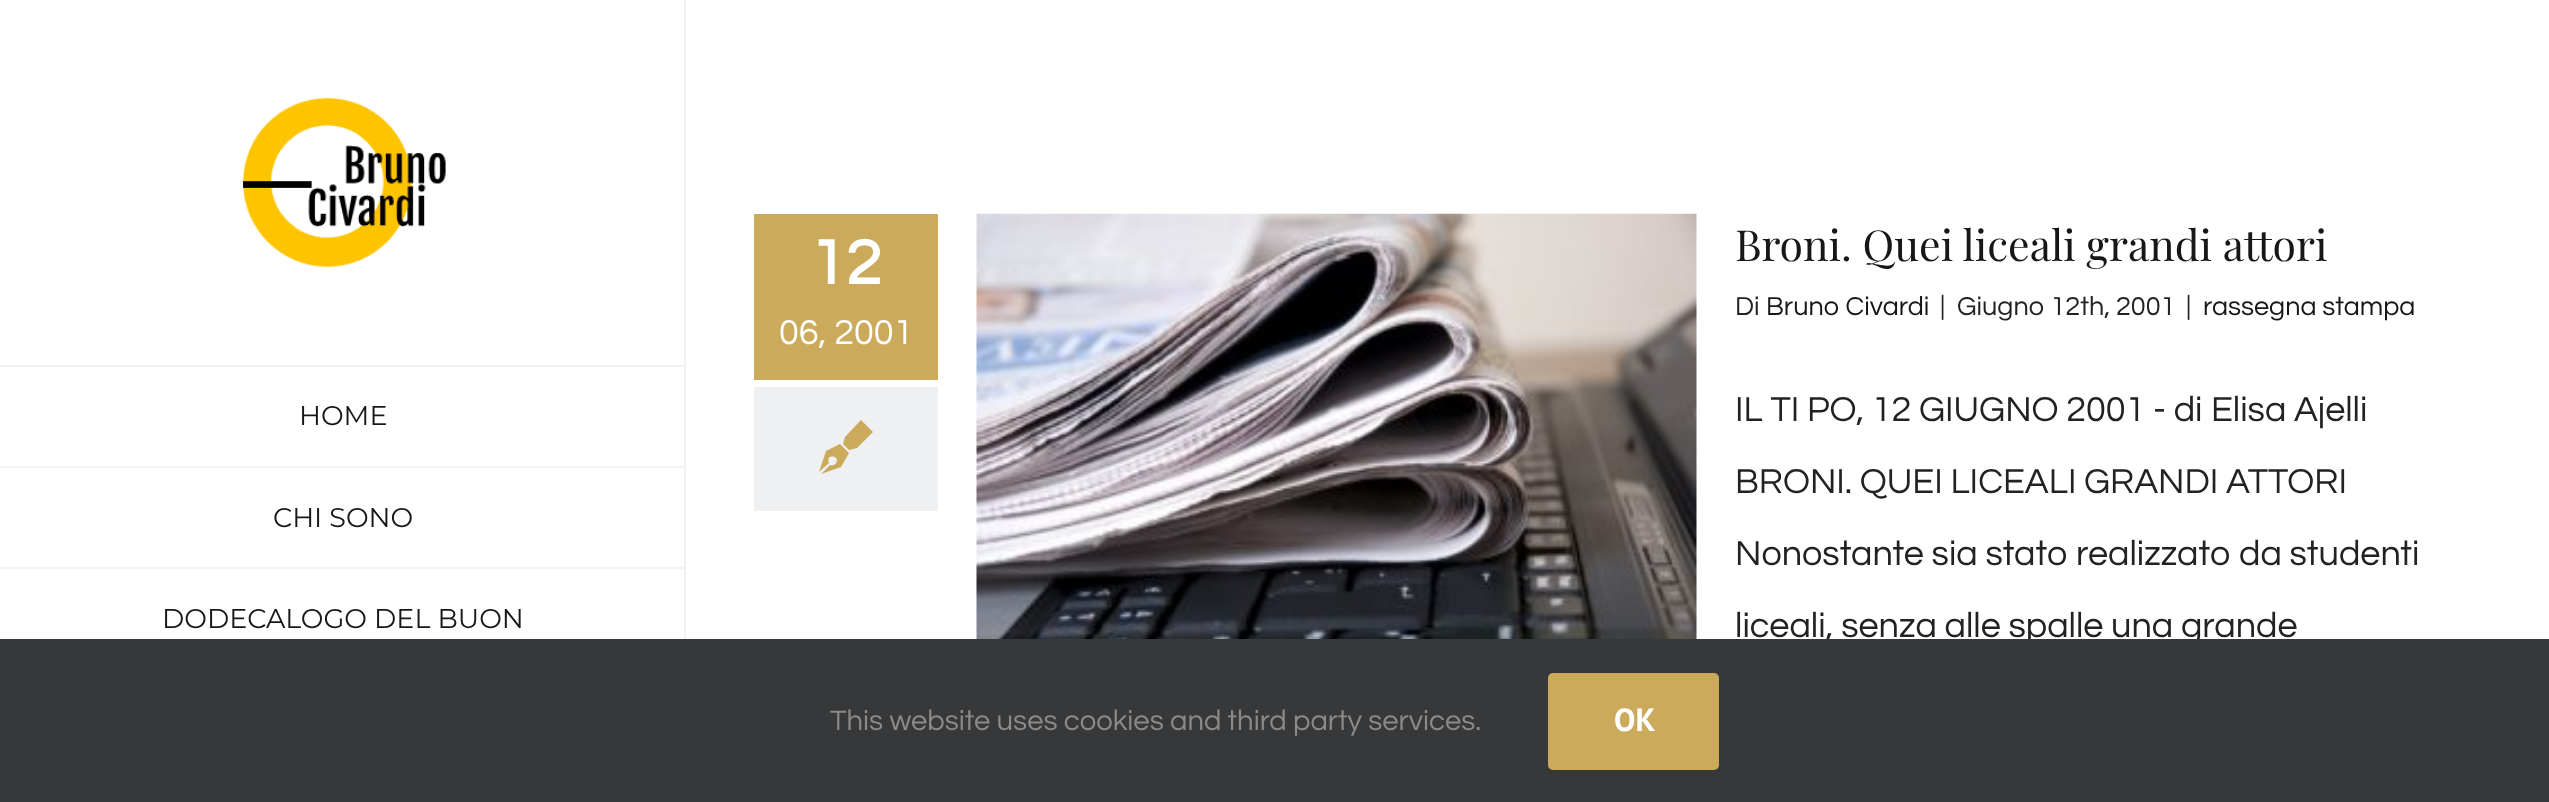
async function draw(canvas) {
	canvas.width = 2549;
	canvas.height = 802;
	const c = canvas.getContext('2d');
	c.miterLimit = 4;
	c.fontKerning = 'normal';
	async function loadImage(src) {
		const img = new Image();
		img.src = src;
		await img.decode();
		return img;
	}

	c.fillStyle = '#fff';
	c.fillRect(0, 0, 2549, 802);
	c.drawImage(await loadImage('img1.png'), 243, 97, 203, 170);
	for (const [x, y, w, h, color] of [
		[684, 0, 2, 639, '#f2f2f2'],
		[0, 365, 686, 2, '#f2f2f2'],
		[0, 466, 686, 2, '#f2f2f2'],
	]) {
		c.fillStyle = color;
		c.fillRect(x, y, w, h);
	}
	c.font = '100 27px Montserrat';
	c.fillStyle = '#171717';
	c.fillText('HOME', 299, 425);
	c.fillStyle = '#f2f2f2';
	c.fillRect(0, 567, 686, 2);
	c.fillStyle = '#171717';
	c.fillText('CHI SONO', 273, 527);
	c.fillText('DODECALOGO DEL BUON', 162, 628);
	c.fillStyle = '#cbaa5c';
	c.fillRect(754, 214, 184, 166);
	c.font = 'bold 65px Questrial';
	c.fillStyle = '#fff';
	c.fillText('12', 810, 284);
	c.font = '36px Questrial';
	c.fillText('06, 2001', 779, 344);
	c.fillStyle = '#eef0f2';
	c.fillRect(754, 387, 184, 124);
	c.fillStyle = '#cbaa5c';
	c.beginPath();
	c.moveTo(826, 451);
	c.lineTo(819, 472);
	c.lineTo(829, 463);
	c.bezierCurveTo(825, 453, 841, 456, 836, 463);
	c.bezierCurveTo(835, 465, 832, 466, 830, 465);
	c.lineTo(821, 474);
	c.lineTo(841, 467);
	c.lineTo(849, 453);
	c.lineTo(840, 444);
	c.closePath();
	c.moveTo(861, 420);
	c.lineTo(845, 437);
	c.lineTo(843, 444);
	c.lineTo(849, 450);
	c.lineTo(857, 448);
	c.lineTo(873, 432);
	c.closePath();
	c.fill();
	c.drawImage(await loadImage('img2.png'), 976, 213, 721, 426);
	c.font = '42.75px Playfair Display';
	c.fillStyle = '#171717';
	c.fillText('Broni. Quei liceali grandi attori', 1735, 261);
	c.font = '27px Questrial';
	c.fillStyle = '#222';
	c.fillText('Di', 1735, 315);
	c.fillStyle = '#171717';
	c.fillText('Bruno Civardi', 1766, 315);
	c.fillStyle = '#222';
	for (const [text, x, y] of [
		['|', 1940, 315],
		['Giugno 12th, 2001', 1957, 315],
		['|', 2186, 315],
	]) {
		c.fillText(text, x, y);
	}
	c.fillStyle = '#171717';
	c.fillText('rassegna stampa', 2203, 315);
	c.font = '36px Questrial';
	c.fillStyle = '#222';
	for (const [text, x, y] of [
		['IL TI PO, 12 GIUGNO 2001 - di Elisa Ajelli', 1735, 421],
		['BRONI. QUEI LICEALI GRANDI ATTORI', 1735, 493],
		['Nonostante sia stato realizzato da studenti', 1735, 565],
		['liceali, senza alle spalle una grande', 1735, 637],
	]) {
		c.fillText(text, x, y);
	}
	c.fillStyle = '#363839';
	c.fillRect(0, 639, 2549, 163);
	c.font = '29.25px Questrial';
	c.fillStyle = '#8c8989';
	c.fillText('This website uses cookies and third party services.', 830, 730);
	c.fillStyle = '#cbaa5c';
	c.beginPath();
	c.roundRect(1548, 673, 171, 97, 5);
	c.fill();
	c.font = 'bold 32px PT Sans';
	c.fillStyle = '#fff';
	c.fillText('OK', 1614, 731);
}

draw(document.querySelector('canvas'));
